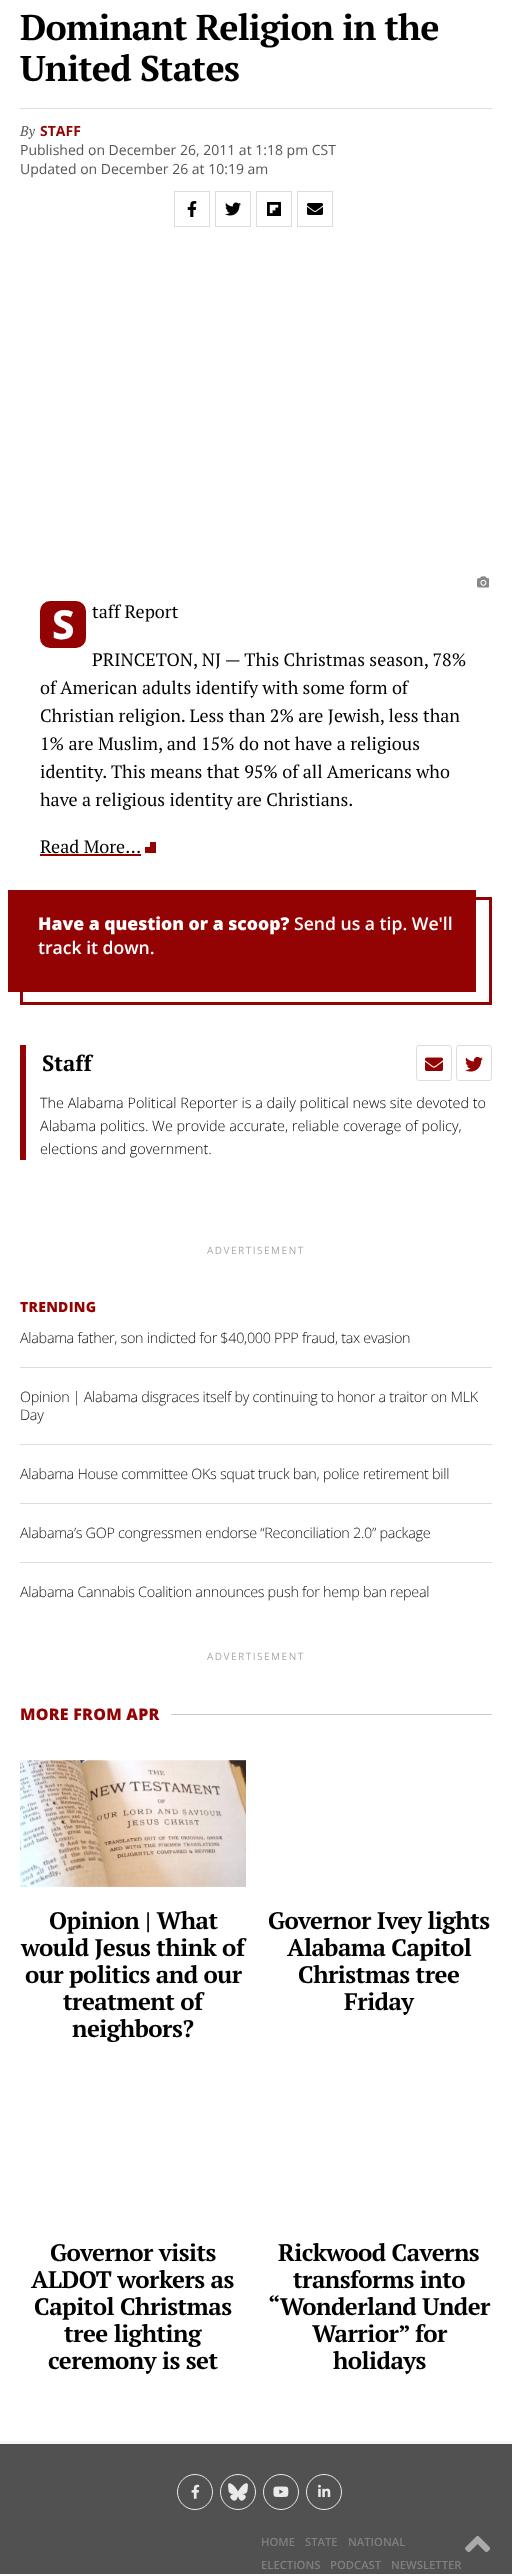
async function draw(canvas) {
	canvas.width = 512;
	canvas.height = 2574;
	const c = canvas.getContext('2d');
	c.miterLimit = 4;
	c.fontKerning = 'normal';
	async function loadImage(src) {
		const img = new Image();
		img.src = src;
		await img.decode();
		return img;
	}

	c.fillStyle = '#fff';
	c.fillRect(0, 0, 512, 2574);
	c.letterSpacing = '-0.75px';
	c.font = 'bold 35.8px PT Serif';
	c.fillStyle = '#000';
	c.fillText('Dominant Religion in the', 20, 40);
	c.fillText('United States', 20, 81);
	c.fillStyle = '#ddd';
	c.fillRect(20, 108, 472, 1);
	c.letterSpacing = '0px';
	c.font = 'italic 14px PT Serif';
	c.fillStyle = '#555';
	c.fillText('By', 20, 136);
	c.font = 'bold 14px Open Sans';
	c.fillStyle = '#940303';
	c.fillText('STAFF', 40, 136);
	c.font = '14px Open Sans';
	c.fillStyle = '#555';
	c.fillText('Published on December 26, 2011 at 1:18 pm CST', 20, 155);
	c.fillText('Updated on December 26 at 10:19 am', 20, 174);
	c.strokeStyle = '#ddd';
	c.strokeRect(174.5, 191.5, 35, 35);
	c.drawImage(await loadImage('img1.png'), 187, 201, 10, 16);
	c.strokeRect(215.5, 191.5, 35, 35);
	c.drawImage(await loadImage('img2.png'), 225, 202, 16, 14);
	c.strokeRect(256.5, 191.5, 35, 35);
	c.drawImage(await loadImage('img3.png'), 267, 202, 14, 14);
	c.strokeRect(297.5, 191.5, 35, 35);
	c.drawImage(await loadImage('img4.png'), 307, 203, 16, 12);
	c.drawImage(await loadImage('img5.png'), 477, 576, 12, 12);
	c.fillStyle = '#940303';
	c.beginPath();
	c.roundRect(40, 601, 46, 47, 10);
	c.fill();
	c.font = '800 40px Noto Sans';
	c.fillStyle = '#fff';
	c.fillText('S', 52, 639);
	c.font = '18px PT Serif';
	c.fillStyle = '#000';
	for (const [text, x, y] of [
		['taff Report', 92, 618],
		['PRINCETON, NJ — This Christmas season, 78%', 92, 666],
		['of American adults identify with some form of', 40, 694],
		['Christian religion. Less than 2% are Jewish, less than', 40, 722],
		['1% are Muslim, and 15% do not have a religious', 40, 750],
		['identity. This means that 95% of all Americans who', 40, 778],
		['have a religious identity are Christians.', 40, 806],
		['Read More…', 40, 853],
	]) {
		c.fillText(text, x, y);
	}
	for (const [x, y, w, h, color] of [
		[40, 854, 101, 2, '#940303'],
		[150, 842, 6, 11, '#940303'],
		[145, 847, 11, 6, '#940303'],
	]) {
		c.fillStyle = color;
		c.fillRect(x, y, w, h);
	}
	c.strokeStyle = '#940303';
	c.lineWidth = 3;
	c.strokeRect(21.5, 898.5, 469, 105);
	c.fillRect(8, 890, 468, 102);
	c.font = '800 17.6px Open Sans';
	c.fillStyle = '#fff';
	c.fillText('Have a question or a scoop?', 38, 930);
	c.font = '600 17.6px Open Sans';
	c.fillText('Send us a tip. We\'ll', 294, 930);
	c.fillText('track it down.', 38, 954);
	c.fillStyle = '#940303';
	c.fillRect(20, 1045, 6, 115);
	c.font = 'bold 22px PT Serif';
	c.fillStyle = '#000';
	c.fillText('Staff', 42, 1071);
	c.beginPath();
	c.roundRect(416.5, 1045.5, 35, 35, 2.5);
	c.strokeStyle = '#ddd';
	c.lineWidth = 1;
	c.stroke();
	c.drawImage(await loadImage('img6.png'), 425, 1057, 18, 14);
	c.beginPath();
	c.roundRect(456.5, 1045.5, 35, 35, 2.5);
	c.stroke();
	c.drawImage(await loadImage('img7.png'), 465, 1056, 18, 16);
	c.font = '300 14.4px Open Sans';
	for (const [text, x, y] of [
		['The Alabama Political Reporter is a daily political news site devoted to', 40, 1108],
		['Alabama politics. We provide accurate, reliable coverage of policy,', 40, 1131],
		['elections and government.', 40, 1154],
	]) {
		c.fillText(text, x, y);
	}
	c.letterSpacing = '1.5px';
	c.font = '10px Open Sans';
	c.fillStyle = '#aaa';
	c.fillText('ADVERTISEMENT', 207, 1254);
	c.letterSpacing = '0.25px';
	c.font = '800 14px Open Sans';
	c.fillStyle = '#940303';
	c.fillText('TRENDING', 20, 1312);
	c.fillStyle = '#ddd';
	c.fillRect(20, 1367, 472, 1);
	c.letterSpacing = '-0.3px';
	c.font = '300 14.4px Open Sans';
	c.fillStyle = '#111';
	c.fillText('Alabama father, son indicted for $40,000 PPP fraud, tax evasion', 20, 1343);
	c.fillStyle = '#ddd';
	c.fillRect(20, 1444, 472, 1);
	c.fillStyle = '#111';
	c.fillText('Opinion | Alabama disgraces itself by continuing to honor a traitor on MLK', 20, 1402);
	c.fillText('Day', 20, 1420);
	c.fillStyle = '#ddd';
	c.fillRect(20, 1503, 472, 1);
	c.fillStyle = '#111';
	c.fillText('Alabama House committee OKs squat truck ban, police retirement bill', 20, 1479);
	c.fillStyle = '#ddd';
	c.fillRect(20, 1562, 472, 1);
	c.fillStyle = '#111';
	c.fillText('Alabama’s GOP congressmen endorse “Reconciliation 2.0” package', 20, 1538);
	c.fillText('Alabama Cannabis Coalition announces push for hemp ban repeal', 20, 1597);
	c.letterSpacing = '1.5px';
	c.font = '10px Open Sans';
	c.fillStyle = '#aaa';
	c.fillText('ADVERTISEMENT', 207, 1660);
	c.fillStyle = '#ccc';
	c.fillRect(171, 1714, 321, 1);
	c.letterSpacing = '0.25px';
	c.font = '800 16px Open Sans';
	c.fillStyle = '#940303';
	c.fillText('MORE FROM APR', 20, 1720);
	c.drawImage(await loadImage('img8.png'), 20, 1760, 226, 127);
	c.letterSpacing = '-0.5px';
	c.font = 'bold 24px PT Serif';
	c.fillStyle = '#000';
	for (const [text, x, y] of [
		['Opinion | What', 49, 1929],
		['would Jesus think of', 21, 1956],
		['our politics and our', 25, 1983],
		['treatment of', 63, 2010],
		['neighbors?', 72, 2037],
		['Governor Ivey lights', 268, 1929],
		['Alabama Capitol', 287, 1956],
		['Christmas tree', 298, 1983],
		['Friday', 344, 2010],
		['Governor visits', 50, 2261],
		['ALDOT workers as', 31, 2288],
		['Capitol Christmas', 34, 2315],
		['tree lighting', 64, 2342],
		['ceremony is set', 48, 2369],
		['Rickwood Caverns', 278, 2261],
		['transforms into', 293, 2288],
		['“Wonderland Under', 268, 2315],
		['Warrior” for', 312, 2342],
		['holidays', 333, 2369],
	]) {
		c.fillText(text, x, y);
	}
	c.fillStyle = '#515151';
	c.fillRect(0, 2444, 512, 130);
	c.fillStyle = '#f7f7f7';
	c.fillRect(0, 2441, 512, 3);
	c.beginPath();
	c.arc(195, 2492, 17.5, 0, 2 * Math.PI);
	c.strokeStyle = '#eaeaea';
	c.stroke();
	c.drawImage(await loadImage('img9.png'), 191, 2484, 9, 15);
	c.beginPath();
	c.arc(238, 2492, 17.5, 0, 2 * Math.PI);
	c.stroke();
	c.drawImage(await loadImage('img10.png'), 228, 2483, 20, 18);
	c.beginPath();
	c.arc(281, 2492, 17.5, 0, 2 * Math.PI);
	c.stroke();
	c.drawImage(await loadImage('img11.png'), 273, 2486, 16, 11);
	c.beginPath();
	c.arc(324, 2492, 17.5, 0, 2 * Math.PI);
	c.stroke();
	c.drawImage(await loadImage('img12.png'), 318, 2484, 13, 13);
	c.letterSpacing = '0px';
	c.font = '600 11.25px Open Sans';
	c.fillStyle = '#808080';
	for (const [text, x, y] of [
		['HOME', 261, 2546],
		['STATE', 305, 2546],
		['NATIONAL', 348, 2546],
		['ELECTIONS', 261, 2569],
		['PODCAST', 330, 2569],
		['NEWSLETTER', 391, 2569],
	]) {
		c.fillText(text, x, y);
	}
	c.drawImage(await loadImage('img13.png'), 465, 2536, 25, 16);
}

draw(document.querySelector('canvas'));
